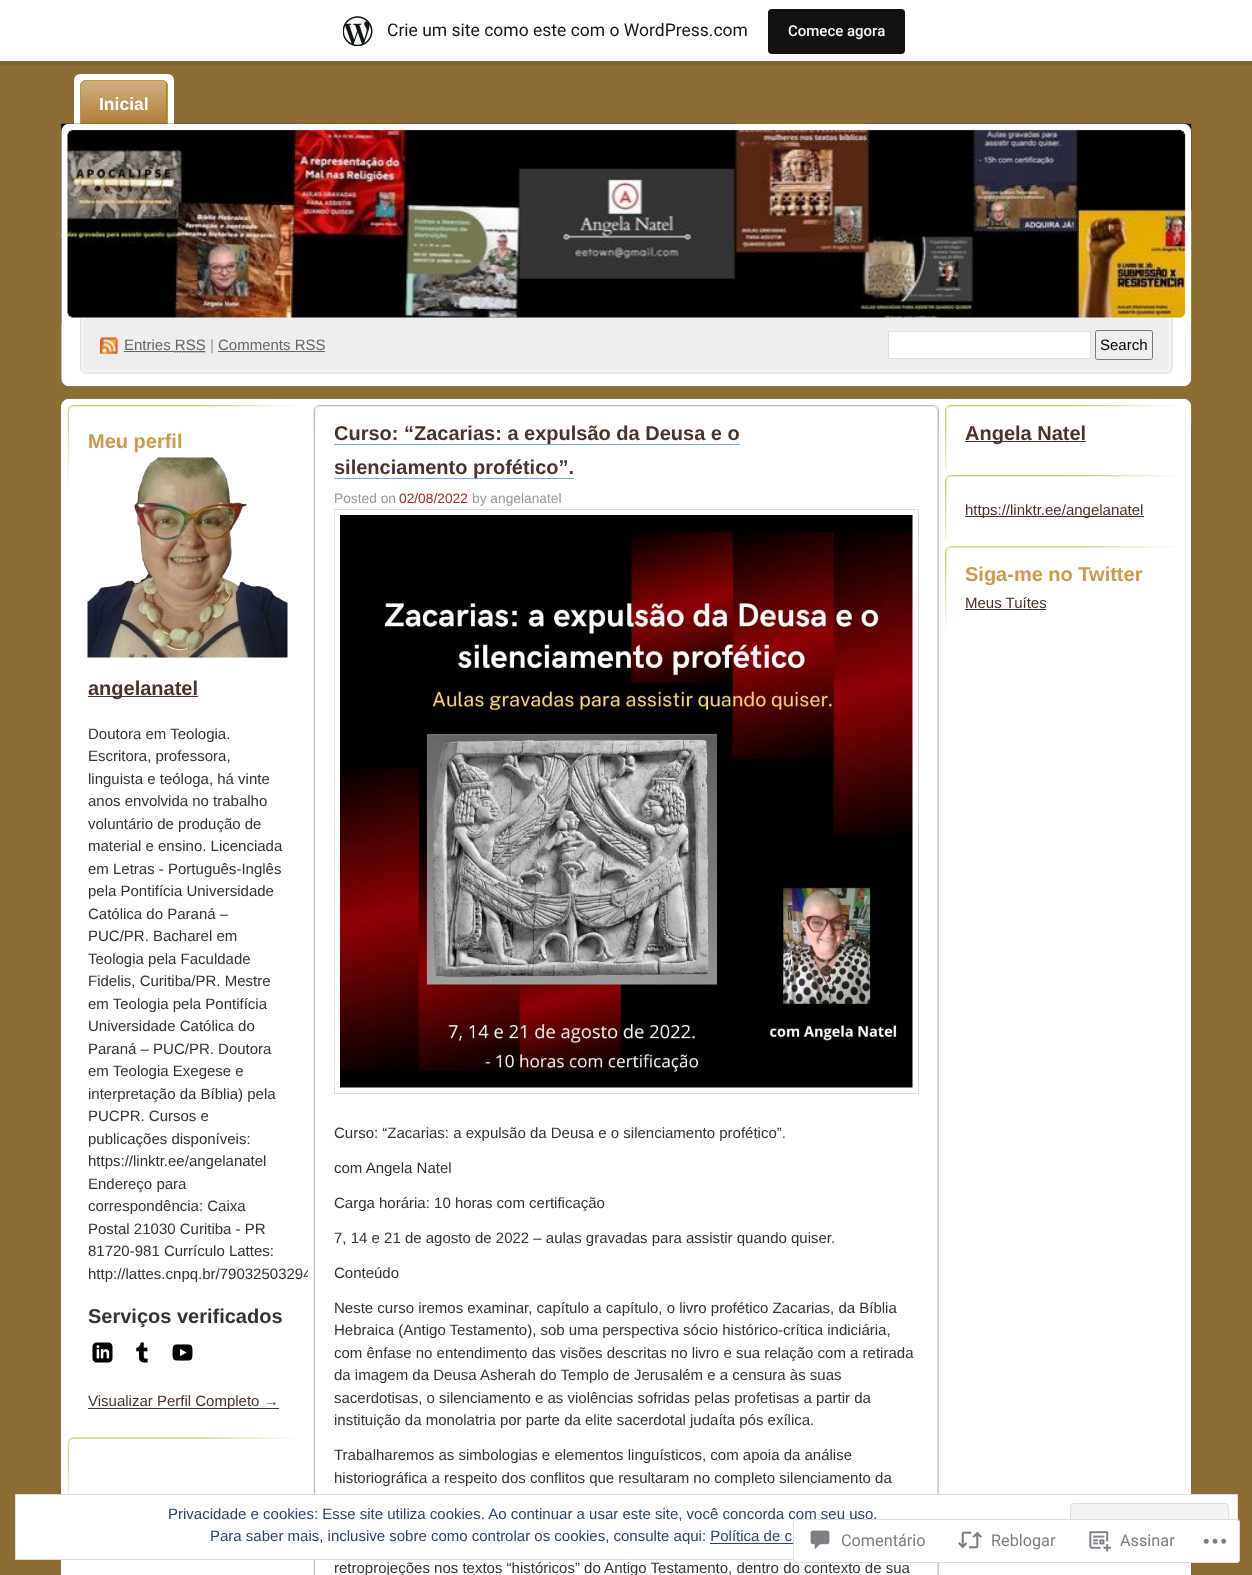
async function draw(canvas) {
	canvas.width = 1252;
	canvas.height = 1575;
	const c = canvas.getContext('2d');
	c.miterLimit = 4;
	c.fontKerning = 'normal';
	async function loadImage(src) {
		const img = new Image();
		img.src = src;
		await img.decode();
		return img;
	}
	let gradient;

	c.fillStyle = '#8c6d34';
	c.fillRect(0, 0, 1252, 1575);
	c.fillStyle = '#00000014';
	c.beginPath();
	c.moveTo(1, 61);
	c.lineTo(1, 65);
	c.lineTo(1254, 65);
	c.lineTo(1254, 4);
	c.lineTo(1252, 4);
	c.lineTo(1252, 61);
	c.closePath();
	c.fill();
	c.fillStyle = '#fff';
	c.fillRect(0, 0, 1252, 61);
	c.drawImage(await loadImage('img1.png'), 343, 16, 30, 30);
	c.font = '17.5px Roboto';
	c.fillStyle = '#171717';
	c.fillText('Crie um site como este com o WordPress.com', 387, 36);
	c.fillStyle = '#111';
	c.beginPath();
	c.roundRect(768, 9, 137, 45, 4);
	c.fill();
	c.font = '500 15px Roboto';
	c.fillStyle = '#f6f7f7';
	c.fillText('Comece agora', 788, 36);
	c.fillStyle = '#fff';
	c.beginPath();
	c.roundRect(74, 74, 100, 54, [6, 6, 0, 0]);
	c.fill();
	c.fillStyle = '#b07c30';
	c.beginPath();
	c.roundRect(80, 80, 88, 48, [6, 6, 0, 0]);
	c.fill();
	c.save();
	c.beginPath();
	c.roundRect(80, 80, 88, 48, [6, 6, 0, 0]);
	c.clip();
	gradient = c.createLinearGradient(81, 81, 81, 126);
	gradient.addColorStop(0, '#ffffff66');
	gradient.addColorStop(1, '#ffffff00');
	c.fillStyle = gradient;
	c.fillRect(81, 81, 85, 43);
	c.restore();
	c.beginPath();
	c.roundRect(80.5, 80.5, 87, 47, [5.5, 5.5, 0, 0]);
	c.strokeStyle = '#cb923d';
	c.stroke();
	c.font = 'bold 17.5px Liberation Sans';
	c.fillStyle = '#fff';
	c.fillText('Inicial', 99, 110);
	c.drawImage(await loadImage('img2.png'), 61, 123, 1131, 201);
	c.drawImage(await loadImage('img3.png'), 61, 123, 1131, 264);
	c.drawImage(await loadImage('img4.png'), 100, 337, 18, 17);
	c.font = '15px Liberation Sans';
	c.fillStyle = '#666';
	c.fillText('Entries RSS', 124, 350);
	c.fillRect(124, 351, 51, 1);
	c.beginPath();
	c.moveTo(174.5, 352);
	c.lineTo(205.5, 352);
	c.strokeStyle = '#666';
	c.lineWidth = 1.2;
	c.setLineDash([1.25, 1.25]);
	c.stroke();
	c.fillRect(175, 351, 30, 1);
	c.fillStyle = '#999';
	c.fillText('|', 210, 350);
	c.fillStyle = '#666';
	c.fillText('Comments RSS', 218, 350);
	c.fillRect(218, 351, 107, 1);
	c.fillStyle = '#fff';
	c.beginPath();
	c.rect(888.5, 331.5, 202, 27);
	c.fill();
	c.strokeStyle = '#ddd';
	c.lineWidth = 1;
	c.setLineDash([]);
	c.stroke();
	c.beginPath();
	c.roundRect(1095.5, 330.5, 57, 29, 2);
	c.strokeStyle = '#767676';
	c.stroke();
	c.fillStyle = '#000';
	c.fillText('Search', 1100, 350);
	c.fillStyle = '#fff';
	c.beginPath();
	c.roundRect(61, 399, 1130, 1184, 8);
	c.fill();
	c.drawImage(await loadImage('img5.png'), 61, 398, 1131, 26);
	c.drawImage(await loadImage('img6.png'), 67, 405, 236, 89);
	c.font = 'bold 20px Liberation Sans';
	c.fillStyle = '#cd994a';
	c.fillText('Meu perfil', 88, 448);
	c.drawImage(await loadImage('img7.png'), 87, 457, 201, 201);
	c.fillStyle = '#49332a';
	c.fillRect(88, 696, 110, 1);
	c.fillText('angelanatel', 88, 695);
	c.font = '15px Liberation Sans';
	c.fillStyle = '#333';
	for (const [text, x, y] of [
		['Doutora em Teologia.', 88, 739],
		['Escritora, professora,', 88, 761],
		['linguista e teóloga, há vinte', 88, 784],
		['anos envolvida no trabalho', 88, 806],
		['voluntário de produção de', 88, 829],
		['material e ensino. Licenciada', 88, 851],
		['em Letras - Português-Inglês', 88, 874],
		['pela Pontifícia Universidade', 88, 896],
		['Católica do Paraná –', 88, 919],
		['PUC/PR. Bacharel em', 88, 941],
		['Teologia pela Faculdade', 88, 964],
		['Fidelis, Curitiba/PR. Mestre', 88, 986],
		['em Teologia pela Pontifícia', 88, 1009],
		['Universidade Católica do', 88, 1031],
		['Paraná – PUC/PR. Doutora', 88, 1054],
		['em Teologia Exegese e', 88, 1076],
		['interpretação da Bíblia) pela', 88, 1099],
		['PUCPR. Cursos e', 88, 1121],
		['publicações disponíveis:', 88, 1144],
		['https://linktr.ee/angelanatel', 88, 1166],
		['Endereço para', 88, 1189],
		['correspondência: Caixa', 88, 1211],
		['Postal 21030 Curitiba - PR', 88, 1234],
		['81720-981 Currículo Lattes:', 88, 1256],
	]) {
		c.fillText(text, x, y);
	}
	c.save();
	c.beginPath();
	c.rect(68, 399, 240, 1107);
	c.clip();
	c.fillText('http://lattes.cnpq.br/79032503294', 88, 1279);
	c.restore();
	c.font = 'bold 20px Liberation Sans';
	c.fillText('Serviços verificados', 88, 1323);
	c.drawImage(await loadImage('img8.png'), 92, 1342, 21, 21);
	c.drawImage(await loadImage('img9.png'), 136, 1342, 12, 21);
	c.drawImage(await loadImage('img10.png'), 172, 1344, 21, 17);
	c.fillStyle = '#49332a';
	c.fillRect(88, 1408, 191, 1);
	c.font = '15px Liberation Sans';
	c.fillText('Visualizar Perfil Completo →', 88, 1406);
	c.drawImage(await loadImage('img11.png'), 67, 1437, 234, 57);
	c.drawImage(await loadImage('img12.png'), 313, 405, 626, 1170);
	c.drawImage(await loadImage('img13.png'), 313, 405, 626, 25);
	c.fillStyle = '#75abea';
	c.fillRect(334, 444, 406, 1);
	c.font = 'bold 20px Liberation Sans';
	c.fillStyle = '#49332a';
	c.fillText('Curso: “Zacarias: a expulsão da Deusa e o', 334, 440);
	c.fillStyle = '#75abea';
	c.fillRect(334, 478, 240, 1);
	c.fillStyle = '#49332a';
	c.fillText('silenciamento profético”.', 334, 474);
	c.font = '13.75px Liberation Sans';
	c.fillStyle = '#999';
	c.fillText('Posted on', 334, 503);
	c.fillStyle = '#a12a2a';
	c.fillText('02/08/2022', 399, 503);
	c.fillStyle = '#999';
	c.fillText('by angelanatel', 472, 503);
	c.strokeStyle = '#ddd';
	c.strokeRect(334.5, 509.5, 584, 584);
	c.drawImage(await loadImage('img14.png'), 340, 515, 573, 573);
	c.font = '15px Liberation Sans';
	c.fillStyle = '#333';
	for (const [text, x, y] of [
		['Curso: “Zacarias: a expulsão da Deusa e o silenciamento profético”.', 334, 1138],
		['com Angela Natel', 334, 1173],
		['Carga horária: 10 horas com certificação', 334, 1208],
		['7, 14 e 21 de agosto de 2022 – aulas gravadas para assistir quando quiser.', 334, 1243],
		['Conteúdo', 334, 1278],
		['Neste curso iremos examinar, capítulo a capítulo, o livro profético Zacarias, da Bíblia', 334, 1313],
		['Hebraica (Antigo Testamento), sob uma perspectiva sócio histórico-crítica indiciária,', 334, 1335],
		['com ênfase no entendimento das visões descritas no livro e sua relação com a retirada', 334, 1358],
		['da imagem da Deusa Asherah do Templo de Jerusalém e a censura às suas', 334, 1380],
		['sacerdotisas, o silenciamento e as violências sofridas pelas profetisas a partir da', 334, 1403],
		['instituição da monolatria por parte da elite sacerdotal judaíta pós exílica.', 334, 1425],
		['Trabalharemos as simbologias e elementos linguísticos, com apoia da análise', 334, 1460],
		['historiográfica a respeito dos conflitos que resultaram no completo silenciamento da', 334, 1483],
		['retroprojeções nos textos “históricos” do Antigo Testamento, dentro do contexto de sua', 334, 1573],
	]) {
		c.fillText(text, x, y);
	}
	c.drawImage(await loadImage('img15.png'), 945, 405, 236, 64);
	c.fillStyle = '#49332a';
	c.fillRect(965, 441, 121, 1);
	c.font = 'bold 20px Liberation Sans';
	c.fillText('Angela Natel', 965, 440);
	c.drawImage(await loadImage('img16.png'), 945, 475, 236, 65);
	c.fillRect(965, 516, 179, 1);
	c.font = '15px Liberation Sans';
	c.fillText('https://linktr.ee/angelanatel', 965, 515);
	c.drawImage(await loadImage('img17.png'), 945, 546, 234, 86);
	c.font = 'bold 20px Liberation Sans';
	c.fillStyle = '#cd994a';
	c.fillText('Siga-me no Twitter', 965, 581);
	c.font = '15px Liberation Sans';
	c.fillStyle = '#49332a';
	c.fillText('Meus Tuítes', 965, 608);
	c.fillRect(965, 609, 81, 1);
	c.fillStyle = '#fff';
	c.beginPath();
	c.rect(15.5, 1494.5, 1222, 65);
	c.fill();
	c.strokeStyle = '#dedede';
	c.stroke();
	c.fillStyle = '#2e4467';
	c.fillText('Privacidade e cookies: Esse site utiliza cookies. Ao continuar a usar este site, você concorda com seu uso.', 168, 1519);
	c.fillStyle = '#f3f3f3';
	c.beginPath();
	c.roundRect(1070.5, 1503.5, 158, 47, 3.5);
	c.fill();
	c.stroke();
	c.fillStyle = '#2e4467';
	c.fillText('Para saber mais, inclusive sobre como controlar os cookies, consulte aqui: Política de c', 210, 1541);
	c.fillRect(710, 1543, 125, 1);
	c.fillStyle = '#fffffffa';
	c.beginPath();
	c.roundRect(793, 1519, 447, 44, 4);
	c.fill();
	c.beginPath();
	c.roundRect(793.5, 1519.5, 446, 43, 3.5);
	c.strokeStyle = '#dcdcdefa';
	c.stroke();
	c.drawImage(await loadImage('img18.png'), 810, 1530, 20, 20);
	c.font = '16.25px Roboto';
	c.fillStyle = '#7b7f85';
	c.fillText('Comentário', 841, 1546);
	c.drawImage(await loadImage('img19.png'), 958, 1531, 24, 18);
	c.fillText('Reblogar', 991, 1546);
	c.drawImage(await loadImage('img20.png'), 1089, 1531, 22, 21);
	c.fillText('Assinar', 1120, 1546);
	c.drawImage(await loadImage('img21.png'), 1203, 1538, 24, 6);
}

draw(document.querySelector('canvas'));
